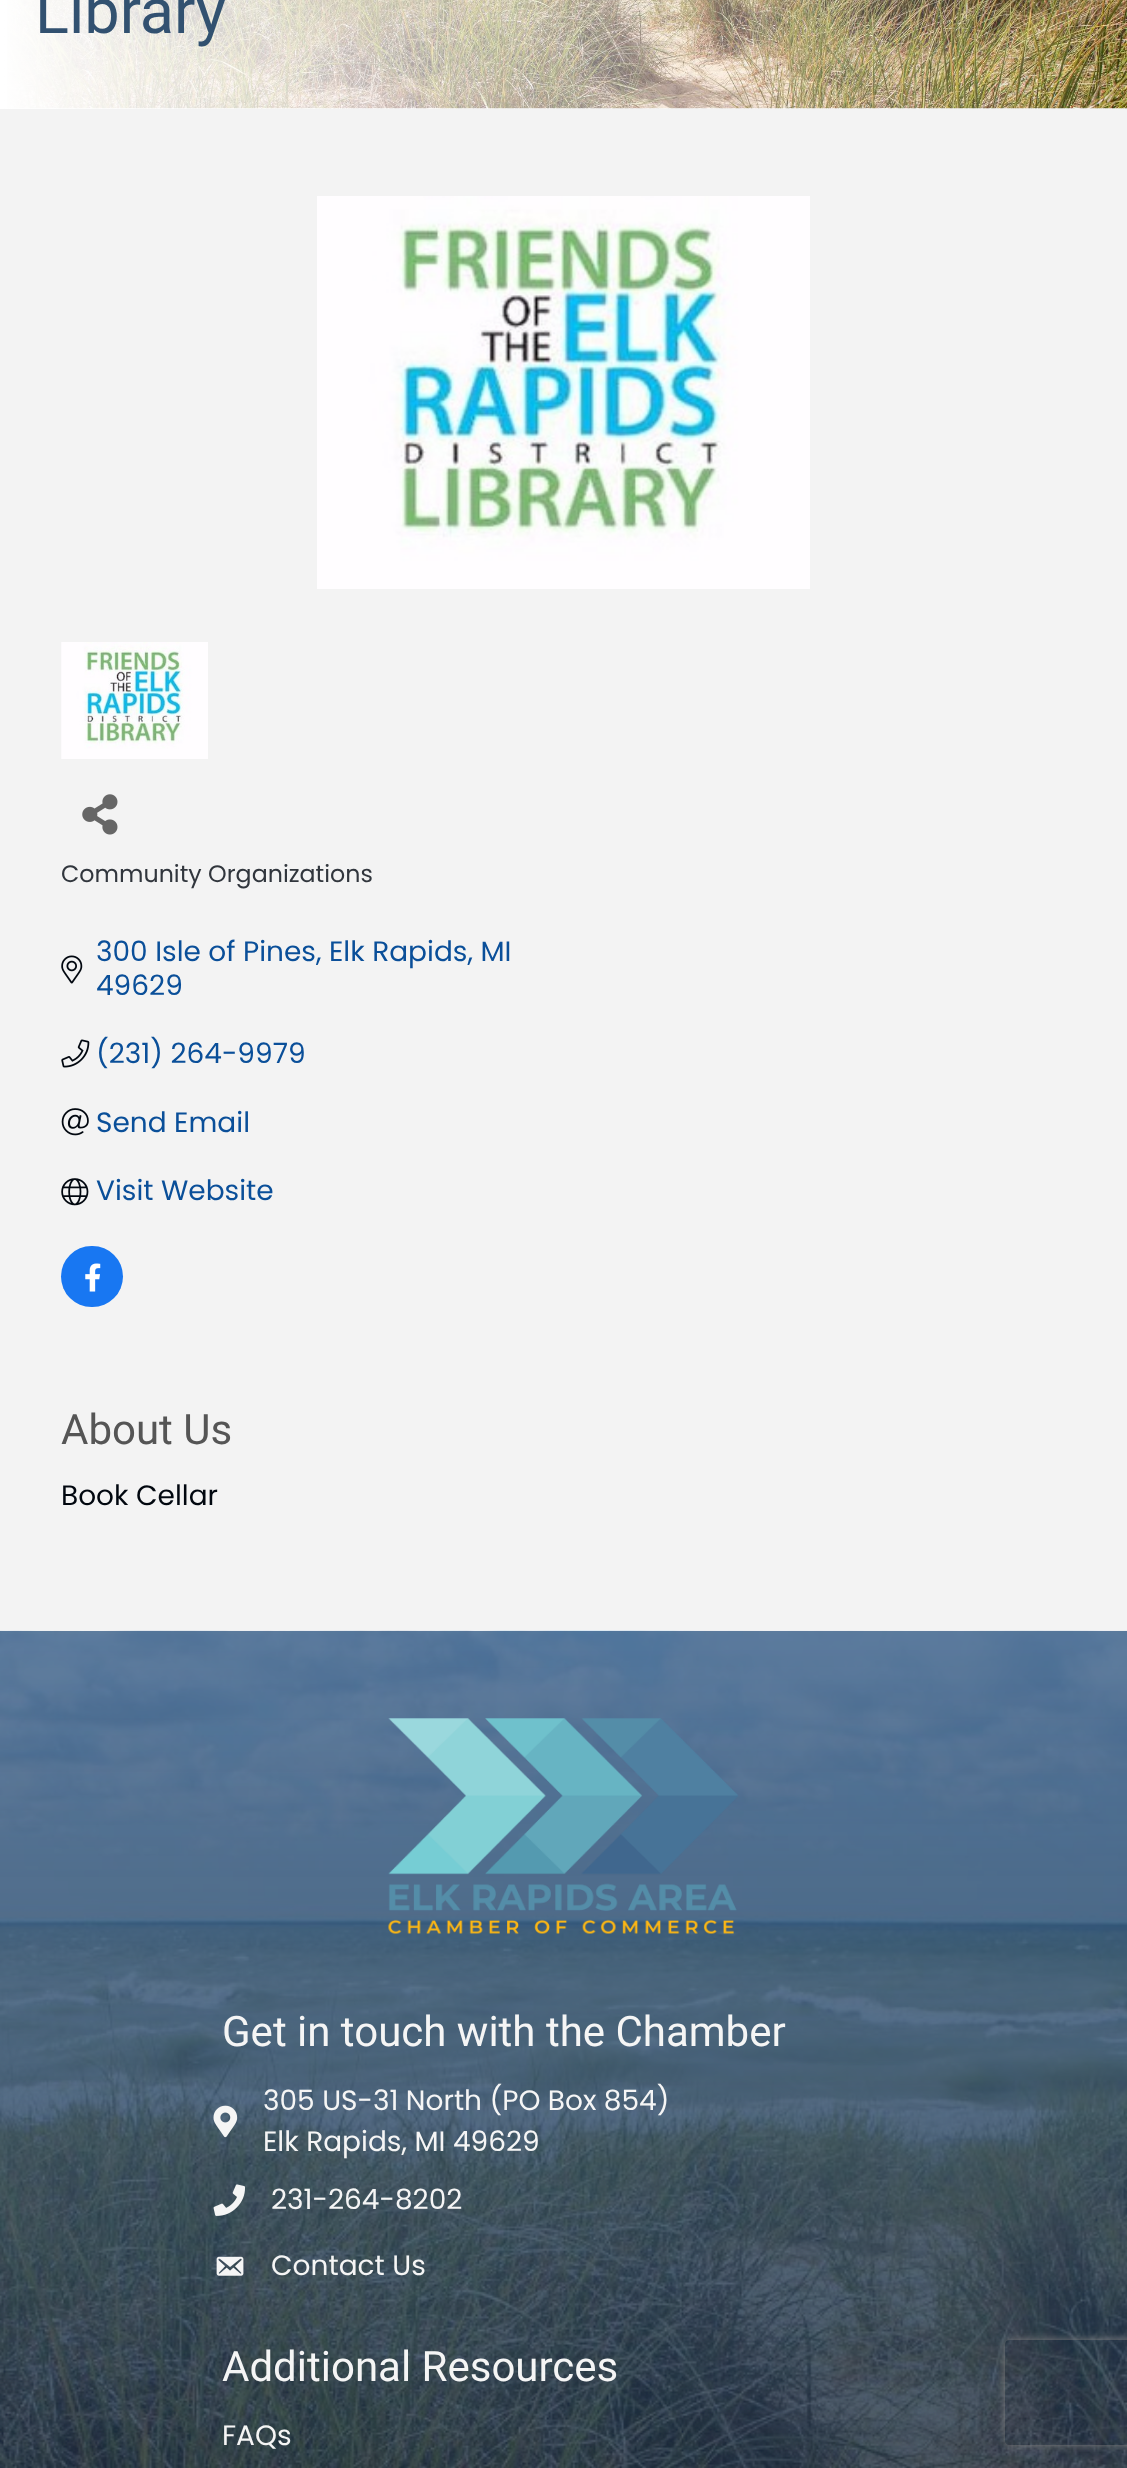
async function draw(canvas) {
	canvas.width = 1127;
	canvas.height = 2468;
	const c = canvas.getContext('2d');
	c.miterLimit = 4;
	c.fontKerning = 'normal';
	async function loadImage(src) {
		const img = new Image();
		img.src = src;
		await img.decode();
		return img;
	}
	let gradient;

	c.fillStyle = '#f3f3f3';
	c.fillRect(0, 0, 1127, 2468);
	c.drawImage(await loadImage('img1.png'), 7, 0, 1120, 109);
	gradient = c.createLinearGradient(0, -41, 1127, -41);
	gradient.addColorStop(0, '#fff');
	gradient.addColorStop(1, '#ffffff00');
	c.fillStyle = gradient;
	c.fillRect(0, 0, 1103, 109);
	c.font = '63px Roboto';
	c.fillStyle = '#325170';
	c.fillText('Library', 35, 33);
	c.drawImage(await loadImage('img2.png'), 317, 196, 493, 393);
	c.drawImage(await loadImage('img3.png'), 61, 642, 147, 117);
	c.drawImage(await loadImage('img4.png'), 82, 794, 36, 41);
	c.font = '23.75px Poppins';
	c.fillStyle = '#31363d';
	c.fillText('Community Organizations', 61, 882);
	c.drawImage(await loadImage('img5.png'), 61, 955, 22, 29);
	c.font = '28px Poppins';
	c.fillStyle = '#0a4f99';
	c.fillText('300 Isle of Pines, Elk Rapids, MI', 96, 961);
	c.fillText('49629', 96, 995);
	c.drawImage(await loadImage('img6.png'), 61, 1039, 29, 29);
	c.fillText('(231) 264-9979', 96, 1063);
	c.drawImage(await loadImage('img7.png'), 61, 1108, 28, 28);
	c.fillText('Send Email', 96, 1132);
	c.drawImage(await loadImage('img8.png'), 61, 1178, 28, 28);
	c.fillText('Visit Website', 96, 1200);
	c.fillStyle = '#1877f2';
	c.beginPath();
	c.roundRect(61, 1246, 62, 61, 30.5);
	c.fill();
	c.drawImage(await loadImage('img9.png'), 85, 1263, 16, 29);
	c.font = '42px Roboto';
	c.fillStyle = '#555';
	c.fillText('About Us', 61, 1444);
	c.font = '28px Poppins';
	c.fillStyle = '#01070f';
	c.fillText('Book Cellar', 61, 1505);
	c.drawImage(await loadImage('img10.png'), 0, 1630, 1127, 838);
	c.drawImage(await loadImage('img11.png'), 388, 1718, 350, 216);
	c.font = '42px Roboto';
	c.fillStyle = '#f5f5f5';
	c.fillText('Get in touch with the Chamber', 222, 2046);
	c.drawImage(await loadImage('img12.png'), 213, 2105, 25, 33);
	c.font = '28px Poppins';
	c.fillText('305 US-31 North (PO Box 854)', 263, 2110);
	c.fillText('Elk Rapids, MI 49629', 263, 2151);
	c.drawImage(await loadImage('img13.png'), 213, 2184, 33, 32);
	c.fillText('231-264-8202', 271, 2209);
	c.drawImage(await loadImage('img14.png'), 216, 2256, 28, 20);
	c.fillText('Contact Us', 271, 2275);
	c.font = '42px Roboto';
	c.fillText('Additional Resources', 222, 2381);
	c.font = '28px Poppins';
	c.fillText('FAQs', 222, 2445);
	c.save();
	c.beginPath();
	c.moveTo(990, 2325);
	c.lineTo(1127, 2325);
	c.lineTo(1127, 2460);
	c.lineTo(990, 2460);
	c.closePath();
	c.moveTo(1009, 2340);
	c.lineTo(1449, 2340);
	c.bezierCurveTo(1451, 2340, 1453, 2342, 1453, 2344);
	c.lineTo(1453, 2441);
	c.bezierCurveTo(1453, 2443, 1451, 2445, 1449, 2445);
	c.lineTo(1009, 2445);
	c.bezierCurveTo(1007, 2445, 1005, 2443, 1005, 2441);
	c.lineTo(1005, 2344);
	c.bezierCurveTo(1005, 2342, 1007, 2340, 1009, 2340);
	c.closePath();
	c.clip('evenodd');
	c.fillStyle = '#808080';
	c.filter = 'blur(4.5px)';
	c.beginPath();
	c.roundRect(1005, 2340, 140, 105, 4);
	c.fill();
	c.filter = 'none';
	c.restore();
}

draw(document.querySelector('canvas'));
